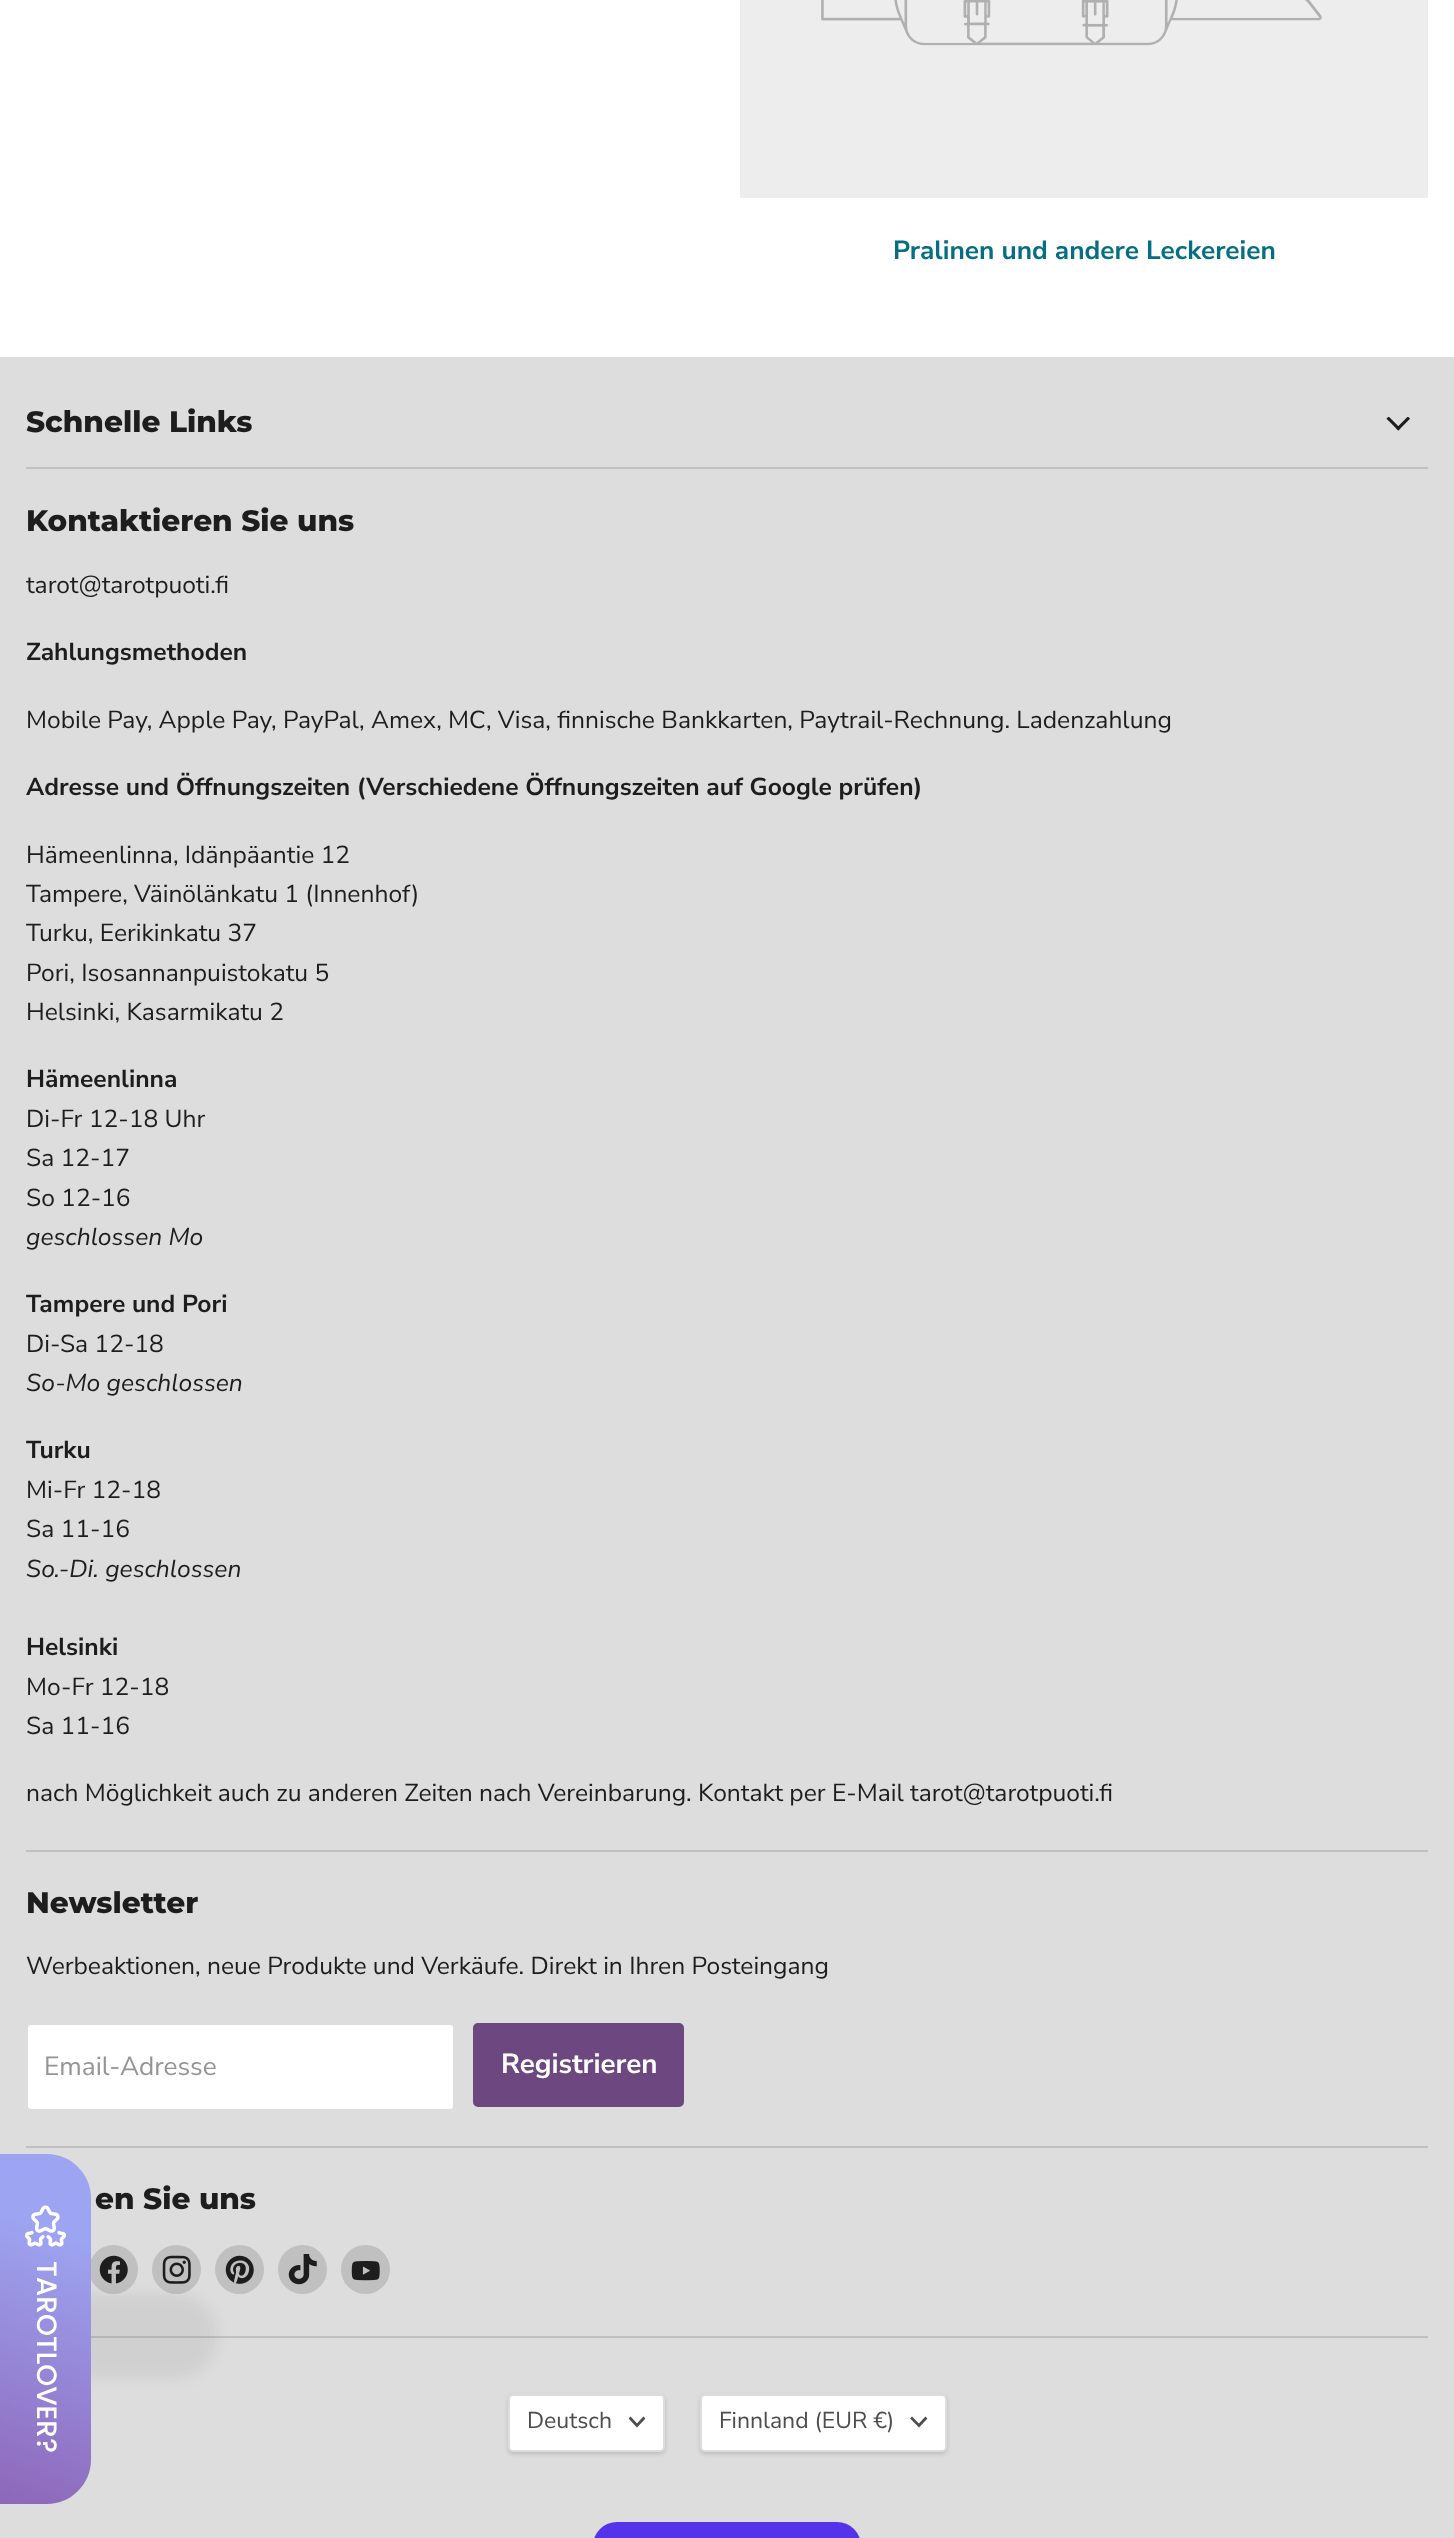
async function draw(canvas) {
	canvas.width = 1454;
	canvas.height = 2538;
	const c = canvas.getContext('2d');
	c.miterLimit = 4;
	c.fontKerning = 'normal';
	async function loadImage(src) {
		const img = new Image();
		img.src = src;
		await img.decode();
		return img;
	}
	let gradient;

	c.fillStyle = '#fff';
	c.fillRect(0, 0, 1454, 2538);
	c.fillStyle = '#ededed';
	c.fillRect(740, 0, 688, 198);
	c.drawImage(await loadImage('img1.png'), 821, 0, 501, 46);
	c.font = 'bold 26.25px Nunito Sans';
	c.fillStyle = '#046e82';
	c.fillText('Pralinen und andere Leckereien', 893, 259);
	c.fillStyle = '#ddd';
	c.fillRect(0, 357, 1454, 2181);
	c.fillStyle = '#c0c0c0';
	c.fillRect(26, 467, 1402, 2);
	c.font = '800 29.5px Montserrat';
	c.fillStyle = '#1d1d1d';
	c.fillText('Schnelle Links', 26, 432);
	c.drawImage(await loadImage('img2.png'), 1386, 417, 24, 14);
	c.fillStyle = '#c0c0c0';
	c.fillRect(26, 1850, 1402, 2);
	c.fillStyle = '#1d1d1d';
	c.fillText('Kontaktieren Sie uns', 26, 531);
	c.font = '24.6px Nunito Sans';
	c.fillText('tarot@tarotpuoti.fi', 26, 593);
	c.font = 'bold 24.6px Nunito Sans';
	c.fillText('Zahlungsmethoden', 26, 660);
	c.font = '24.6px Nunito Sans';
	c.fillText('Mobile Pay, Apple Pay, PayPal, Amex, MC, Visa, finnische Bankkarten, Paytrail-Rechnung. Ladenzahlung', 26, 728);
	c.font = 'bold 24.6px Nunito Sans';
	c.fillText('Adresse und Öffnungszeiten (Verschiedene Öffnungszeiten auf Google prüfen)', 26, 795);
	c.font = '24.6px Nunito Sans';
	for (const [text, x, y] of [
		['Hämeenlinna, Idänpäantie 12', 26, 863],
		['Tampere, Väinölänkatu 1 (Innenhof)', 26, 902],
		['Turku, Eerikinkatu 37', 26, 941],
		['Pori, Isosannanpuistokatu 5', 26, 981],
		['Helsinki, Kasarmikatu 2', 26, 1020],
	]) {
		c.fillText(text, x, y);
	}
	c.font = 'bold 24.6px Nunito Sans';
	c.fillText('Hämeenlinna', 26, 1087);
	c.font = '24.6px Nunito Sans';
	for (const [text, x, y] of [
		['Di-Fr 12-18 Uhr', 26, 1127],
		['Sa 12-17', 26, 1166],
		['So 12-16', 26, 1206],
	]) {
		c.fillText(text, x, y);
	}
	c.font = 'italic 24.6px Nunito Sans';
	c.fillText('geschlossen Mo', 26, 1245);
	c.font = 'bold 24.6px Nunito Sans';
	c.fillText('Tampere und Pori', 26, 1312);
	c.font = '24.6px Nunito Sans';
	c.fillText('Di-Sa 12-18', 26, 1352);
	c.font = 'italic 24.6px Nunito Sans';
	c.fillText('So-Mo geschlossen', 26, 1391);
	c.font = 'bold 24.6px Nunito Sans';
	c.fillText('Turku', 26, 1458);
	c.font = '24.6px Nunito Sans';
	c.fillText('Mi-Fr 12-18', 26, 1498);
	c.fillText('Sa 11-16', 26, 1537);
	c.font = 'italic 24.6px Nunito Sans';
	c.fillText('So.-Di. geschlossen', 26, 1577);
	c.font = 'bold 24.6px Nunito Sans';
	c.fillText('Helsinki', 26, 1655);
	c.font = '24.6px Nunito Sans';
	for (const [text, x, y] of [
		['Mo-Fr 12-18', 26, 1695],
		['Sa 11-16', 26, 1734],
		['nach Möglichkeit auch zu anderen Zeiten nach Vereinbarung. Kontakt per E-Mail tarot@tarotpuoti.fi', 26, 1801],
	]) {
		c.fillText(text, x, y);
	}
	c.fillStyle = '#c0c0c0';
	c.fillRect(26, 2146, 1402, 2);
	c.font = '800 29.5px Montserrat';
	c.fillStyle = '#1d1d1d';
	c.fillText('Newsletter', 26, 1913);
	c.font = '24.6px Nunito Sans';
	c.fillText('Werbeaktionen, neue Produkte und Verkäufe. Direkt in Ihren Posteingang', 26, 1974);
	c.fillStyle = '#fff';
	c.beginPath();
	c.roundRect(27, 2024, 427, 86, 4);
	c.fill();
	c.strokeStyle = '#ddd';
	c.lineWidth = 2;
	c.stroke();
	c.font = '26.25px Nunito Sans';
	c.fillStyle = '#949494';
	c.fillText('Email-Adresse', 44, 2075);
	c.fillStyle = '#6c4780';
	c.beginPath();
	c.roundRect(474, 2024, 209, 82, 4);
	c.fill();
	c.strokeStyle = '#6c4780';
	c.stroke();
	c.font = 'bold 27.75px Nunito Sans';
	c.fillStyle = '#fff';
	c.fillText('Registrieren', 501, 2073);
	c.fillStyle = '#c0c0c0';
	c.fillRect(91, 2336, 1337, 2);
	c.font = '800 29.5px Montserrat';
	c.fillStyle = '#1d1d1d';
	c.fillText('en Sie uns', 95, 2209);
	c.fillStyle = '#c0c0c0';
	c.beginPath();
	c.arc(113.5, 2269.5, 24.5, 0, 2 * Math.PI);
	c.fill();
	c.drawImage(await loadImage('img3.png'), 99, 2255, 29, 29);
	c.beginPath();
	c.arc(176.5, 2269.5, 24.5, 0, 2 * Math.PI);
	c.fill();
	c.drawImage(await loadImage('img4.png'), 162, 2255, 29, 29);
	c.beginPath();
	c.arc(239.5, 2269.5, 24.5, 0, 2 * Math.PI);
	c.fill();
	c.drawImage(await loadImage('img5.png'), 225, 2255, 29, 29);
	c.beginPath();
	c.arc(302.5, 2269.5, 24.5, 0, 2 * Math.PI);
	c.fill();
	c.drawImage(await loadImage('img6.png'), 288, 2254, 29, 31);
	c.beginPath();
	c.arc(365.5, 2269.5, 24.5, 0, 2 * Math.PI);
	c.fill();
	c.drawImage(await loadImage('img7.png'), 351, 2261, 29, 20);
	c.fillStyle = '#00000026';
	c.filter = 'blur(2px)';
	c.beginPath();
	c.roundRect(508, 2396, 157, 58, 5);
	c.fill();
	c.filter = 'none';
	c.fillStyle = '#fff';
	c.beginPath();
	c.roundRect(509, 2395, 155, 56, 4);
	c.fill();
	c.strokeStyle = '#ddd';
	c.stroke();
	c.font = '23px Nunito Sans';
	c.fillStyle = '#4d4d4d';
	c.fillText('Deutsch', 527, 2428);
	c.beginPath();
	c.moveTo(637, 2425.5);
	c.lineTo(643.5, 2418.5);
	c.moveTo(637, 2425.5);
	c.lineTo(630.5, 2418.5);
	c.strokeStyle = '#4d4d4d';
	c.lineWidth = 2.7;
	c.lineCap = 'square';
	c.stroke();
	c.fillStyle = '#00000026';
	c.filter = 'blur(2px)';
	c.beginPath();
	c.roundRect(700, 2396, 247, 58, 5);
	c.fill();
	c.filter = 'none';
	c.fillStyle = '#fff';
	c.beginPath();
	c.roundRect(701, 2395, 245, 56, 4);
	c.fill();
	c.strokeStyle = '#ddd';
	c.lineWidth = 2;
	c.stroke();
	c.fillStyle = '#4d4d4d';
	c.fillText('Finnland (EUR €)', 719, 2428);
	c.beginPath();
	c.moveTo(919, 2425.5);
	c.lineTo(925.5, 2418.5);
	c.moveTo(919, 2425.5);
	c.lineTo(912, 2418.5);
	c.strokeStyle = '#4d4d4d';
	c.lineWidth = 2.7;
	c.stroke();
	c.fillStyle = '#5433eb';
	c.beginPath();
	c.roundRect(593, 2522, 268, 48, 31.5);
	c.fill();
	c.fillStyle = '#44444414';
	c.filter = 'blur(7px)';
	c.beginPath();
	c.roundRect(-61, 2294, 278, 84, 40);
	c.fill();
	c.filter = 'none';
	gradient = c.createLinearGradient(106, 2159, -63, 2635);
	gradient.addColorStop(0.17, '#9da4f1');
	gradient.addColorStop(1, '#86469c');
	c.fillStyle = gradient;
	c.beginPath();
	c.moveTo(91, 2198);
	c.lineTo(91, 2460);
	c.bezierCurveTo(91, 2484, 71, 2504, 47, 2504);
	c.lineTo(0, 2504);
	c.lineTo(0, 2154);
	c.lineTo(47, 2154);
	c.bezierCurveTo(71, 2154, 91, 2174, 91, 2198);
	c.closePath();
	c.fill();
	c.drawImage(await loadImage('img8.png'), 25, 2205, 42, 42);
	c.font = '500 28px Poppins';
	c.fillStyle = '#fff';
	c.save();
	c.translate(37, 2261);
	c.rotate(90 * Math.PI / 180);
	c.fillText('TAROTLOVER?', 0, 0);
	c.restore();
}

draw(document.querySelector('canvas'));
